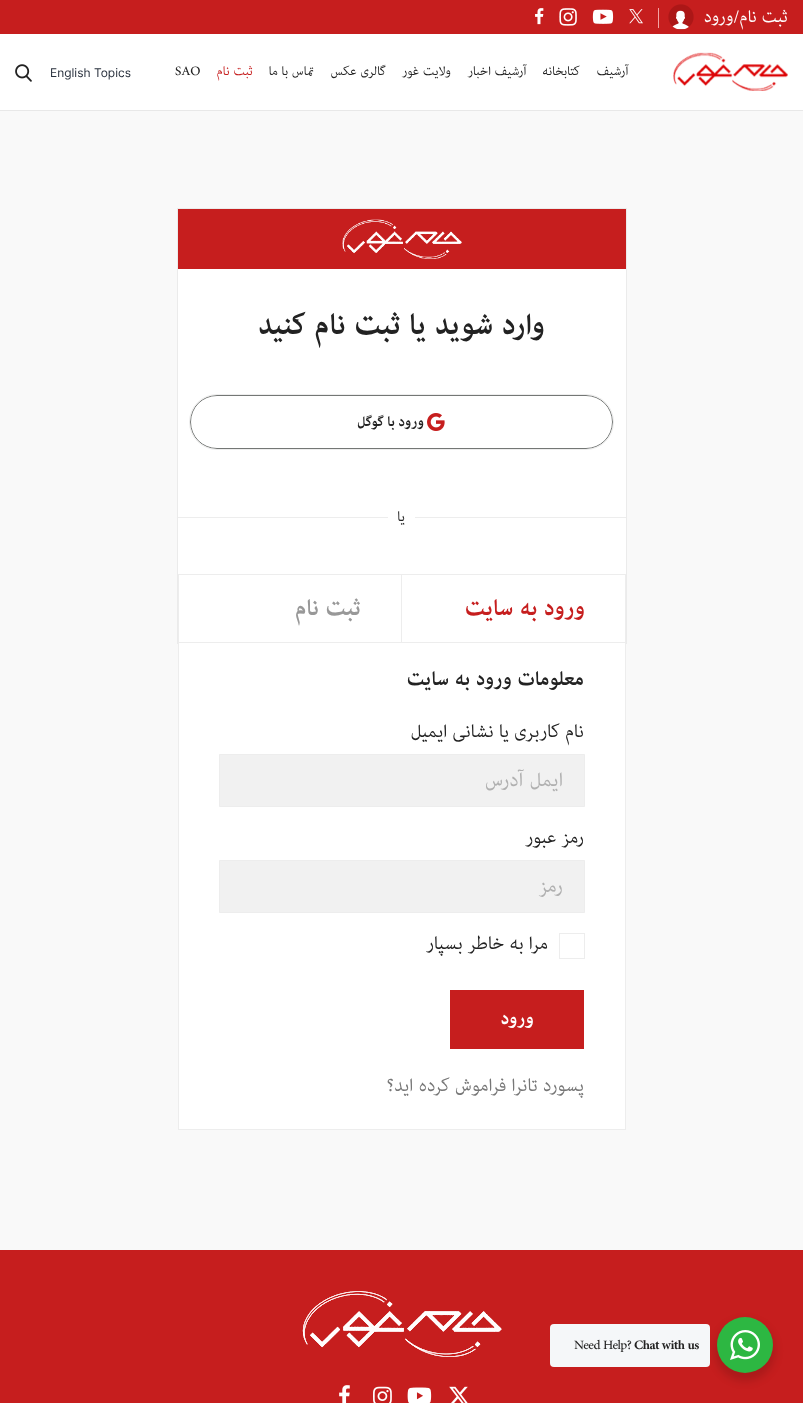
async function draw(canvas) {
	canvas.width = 803;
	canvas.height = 1403;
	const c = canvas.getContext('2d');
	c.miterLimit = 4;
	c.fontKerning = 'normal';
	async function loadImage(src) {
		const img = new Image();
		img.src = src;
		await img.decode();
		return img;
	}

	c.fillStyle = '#f9f9f9';
	c.fillRect(0, 0, 803, 1403);
	c.fillStyle = '#c61e1e';
	c.fillRect(0, 0, 803, 34);
	c.direction = 'rtl';
	c.font = '24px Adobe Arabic';
	c.fillStyle = '#fff';
	c.fillText('ثبت نام/ورود', 788, 22);
	c.drawImage(await loadImage('img1.png'), 668, 4, 26, 26);
	c.fillStyle = '#f3a4a4';
	c.fillRect(658, 8, 1, 20);
	c.drawImage(await loadImage('img2.png'), 629, 9, 14, 15);
	c.drawImage(await loadImage('img3.png'), 592, 9, 22, 15);
	c.drawImage(await loadImage('img4.png'), 559, 8, 18, 18);
	c.drawImage(await loadImage('img5.png'), 535, 8, 9, 17);
	c.fillStyle = '#fff';
	c.fillRect(0, 34, 803, 76);
	c.fillStyle = '#e8e8e8';
	c.fillRect(0, 110, 803, 1);
	c.drawImage(await loadImage('img6.png'), 673, 52, 115, 39);
	c.font = '18px Adobe Arabic';
	c.fillStyle = '#222';
	for (const [text, x, y] of [
		['آرشیف', 629, 75],
		['کتابخانه', 580, 75],
		['آرشیف اخبار', 527, 75],
		['ولایت غور', 451, 75],
		['گالری عکس', 386, 75],
		['تماس با ما', 314, 75],
	]) {
		c.fillText(text, x, y);
	}
	c.fillStyle = '#c61e1e';
	c.fillText('ثبت نام', 253, 75);
	c.direction = 'ltr';
	c.fillStyle = '#222';
	c.fillText('SAO', 175, 75);
	c.font = '12px Inter';
	c.fillStyle = '#28303d';
	c.fillText('English Topics', 50, 77);
	c.drawImage(await loadImage('img7.png'), 15, 64, 17, 18);
	c.fillStyle = '#fff';
	c.fillRect(178, 269, 448, 373);
	c.strokeStyle = '#ebebeb';
	c.strokeRect(177.5, 208.5, 449, 435);
	c.fillStyle = '#c61e1e';
	c.fillRect(178, 209, 448, 60);
	c.drawImage(await loadImage('img8.png'), 342, 219, 120, 40);
	c.direction = 'rtl';
	c.font = 'bold 42px Adobe Arabic';
	c.fillStyle = '#222';
	c.fillText('وارد شوید یا ثبت نام کنید', 545, 334);
	c.beginPath();
	c.roundRect(190.5, 395.5, 422, 53, 26.5);
	c.strokeStyle = '#747775';
	c.stroke();
	c.beginPath();
	c.roundRect(189.5, 394.5, 424, 55, 27.5);
	c.strokeStyle = '#ededed';
	c.stroke();
	c.drawImage(await loadImage('img9.png'), 427, 413, 18, 18);
	c.save();
	c.beginPath();
	c.rect(355, 405, 69, 34);
	c.clip();
	c.letterSpacing = '0.25px';
	c.wordSpacing = '-1px';
	c.font = 'bold 20px Adobe Arabic';
	c.fillText('ورود با گوگل', 424, 426);
	c.restore();
	c.fillStyle = '#ededed';
	c.fillRect(178, 517, 448, 1);
	c.fillStyle = '#fff';
	c.fillRect(388, 517, 27, 1);
	c.font = '20px Adobe Arabic';
	c.fillStyle = '#222';
	c.fillText('یا', 405, 521);
	for (const [x, y, w, h, color] of [
		[178, 574, 448, 1, '#ededed'],
		[178, 642, 448, 1, '#ededed'],
		[625, 575, 1, 67, '#ededed'],
	]) {
		c.fillStyle = color;
		c.fillRect(x, y, w, h);
	}
	c.font = 'bold 32px Adobe Arabic';
	c.fillStyle = '#c61e1e';
	c.fillText('ورود به سایت', 585, 615);
	c.fillStyle = '#ededed';
	c.fillRect(401, 575, 1, 67);
	c.fillRect(178, 575, 1, 67);
	c.fillStyle = '#989898';
	c.fillText('ثبت نام', 361, 615);
	for (const [x, y, w, h, color] of [
		[179, 643, 446, 486, '#fff'],
		[625, 643, 1, 487, '#ededed'],
		[178, 1129, 448, 1, '#ededed'],
		[178, 643, 1, 487, '#ededed'],
	]) {
		c.fillStyle = color;
		c.fillRect(x, y, w, h);
	}
	c.font = 'bold 28px Adobe Arabic';
	c.fillStyle = '#222';
	c.fillText('معلومات ورود به سایت', 584, 685);
	c.font = '26px Adobe Arabic';
	c.fillText('نام کاربری یا نشانی ایمیل', 584, 737);
	c.fillStyle = '#f1f1f1';
	c.beginPath();
	c.rect(219.5, 754.5, 365, 52);
	c.fill();
	c.stroke();
	c.font = '28px Adobe Arabic';
	c.fillStyle = '#b0b0b0';
	c.fillText('ایمل آدرس', 563, 786);
	c.font = '26px Adobe Arabic';
	c.fillStyle = '#222';
	c.fillText('رمز عبور', 584, 843);
	c.fillStyle = '#f1f1f1';
	c.beginPath();
	c.rect(219.5, 860.5, 365, 52);
	c.fill();
	c.stroke();
	c.font = '28px Adobe Arabic';
	c.fillStyle = '#b0b0b0';
	c.fillText('رمز', 563, 892);
	c.strokeRect(559.5, 933.5, 25, 25);
	c.font = '26px Adobe Arabic';
	c.fillStyle = '#222';
	c.fillText('مرا به خاطر بسپار', 548, 949);
	c.fillStyle = '#c61e1e';
	c.fillRect(450, 990, 134, 59);
	c.font = 'bold 26px Adobe Arabic';
	c.fillStyle = '#fff';
	c.fillText('ورود', 534, 1024);
	c.font = '26px Adobe Arabic';
	c.fillStyle = '#777';
	c.fillText('پسورد تانرا فراموش کرده اید؟', 584, 1091);
	c.fillStyle = '#c61e1e';
	c.fillRect(0, 1250, 803, 153);
	c.drawImage(await loadImage('img10.png'), 302, 1291, 200, 66);
	c.drawImage(await loadImage('img11.png'), 449, 1386, 19, 17);
	c.drawImage(await loadImage('img12.png'), 407, 1387, 25, 16);
	c.drawImage(await loadImage('img13.png'), 373, 1386, 19, 17);
	c.drawImage(await loadImage('img14.png'), 339, 1385, 11, 18);
	c.fillStyle = '#00000024';
	c.filter = 'blur(4px)';
	c.beginPath();
	c.roundRect(715, 1321, 60, 60, 30);
	c.fill();
	c.filter = 'none';
	c.fillStyle = '#2db742';
	c.beginPath();
	c.arc(745, 1345, 28, 0, 2 * Math.PI);
	c.fill();
	c.drawImage(await loadImage('img15.png'), 730, 1330, 30, 30);
	c.fillStyle = '#f5f7f9';
	c.beginPath();
	c.roundRect(550, 1324, 160, 43, 4);
	c.fill();
	c.letterSpacing = '-0.5px';
	c.direction = 'ltr';
	c.font = 'bold 18px Adobe Arabic';
	c.fillStyle = '#222';
	c.fillText('Chat with us', 634, 1349);
	c.font = '18px Adobe Arabic';
	c.fillText('Need Help?', 574, 1349);
}

draw(document.querySelector('canvas'));
